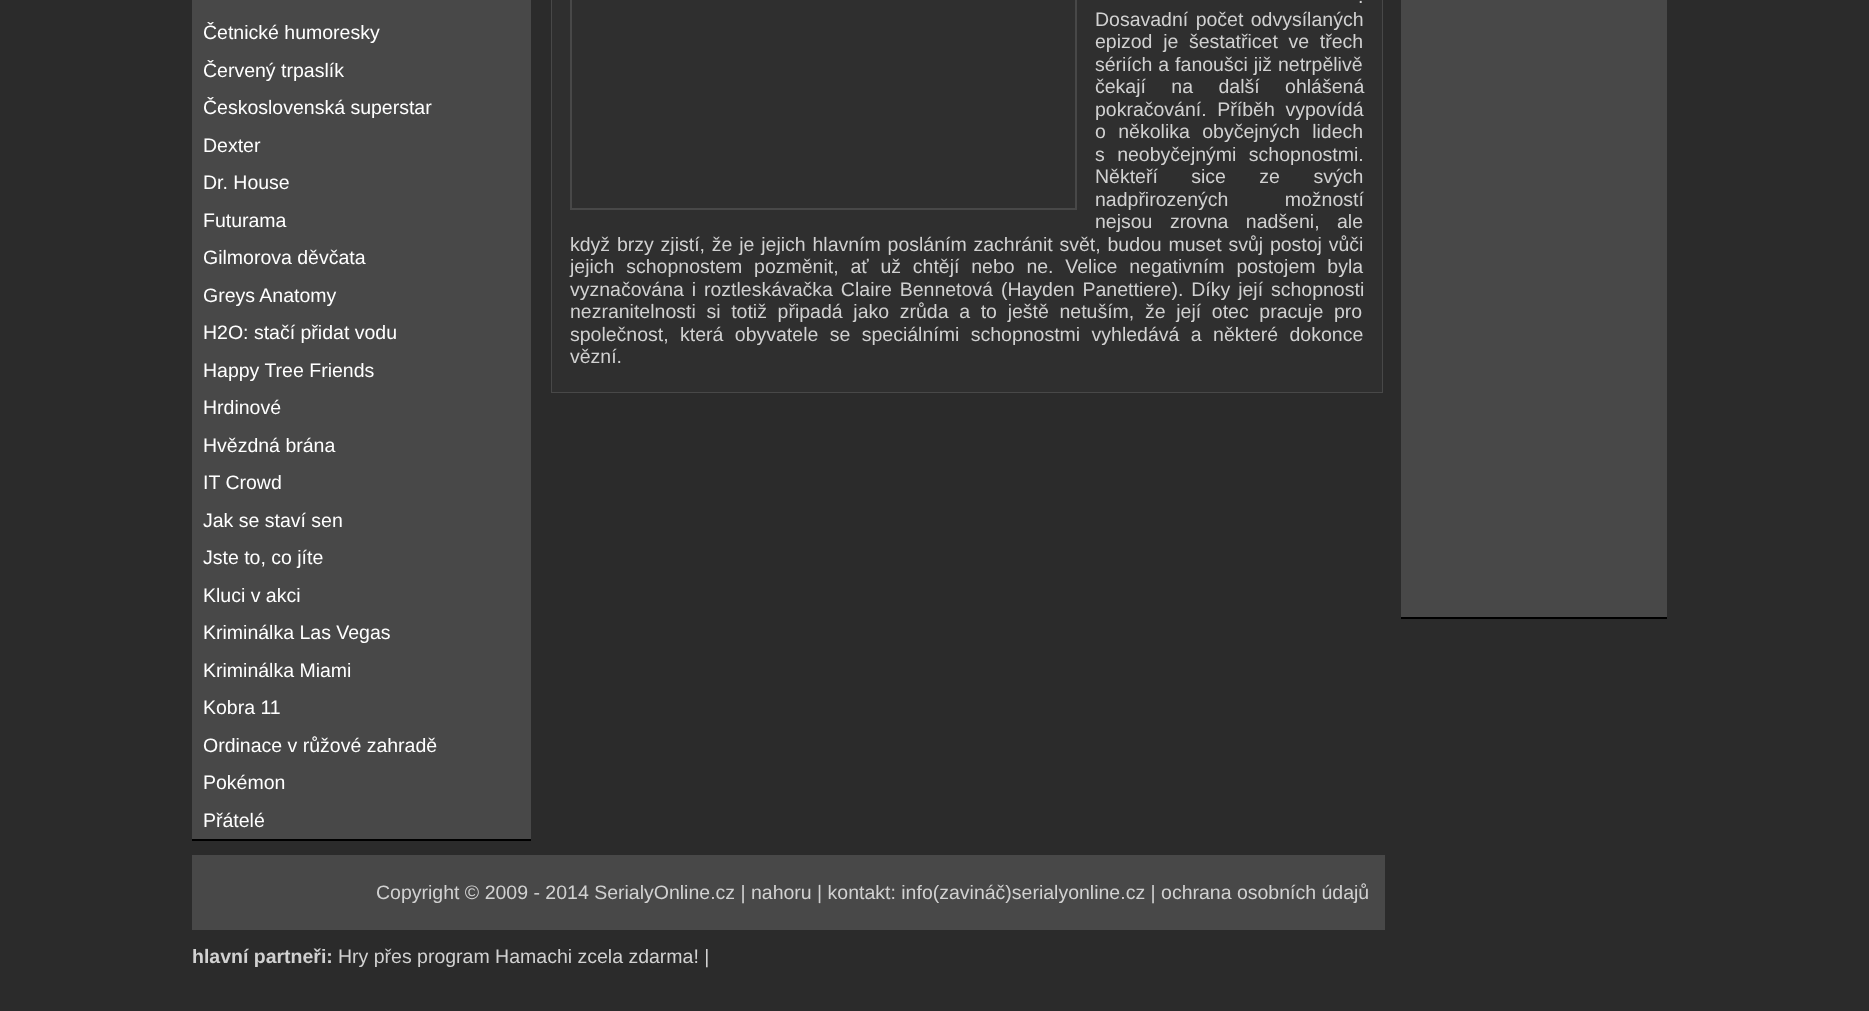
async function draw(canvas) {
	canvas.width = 1869;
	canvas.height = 1011;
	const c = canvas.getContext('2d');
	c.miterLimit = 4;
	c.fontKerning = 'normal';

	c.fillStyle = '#2b2b2b';
	c.fillRect(0, 0, 1869, 1011);
	c.fillStyle = '#000';
	c.fillRect(192, 839, 339, 2);
	c.fillStyle = '#484848';
	c.fillRect(192, 0, 339, 839);
	c.font = '19.5px Liberation Sans';
	c.fillStyle = '#fff';
	for (const [text, x, y] of [
		['Četnické humoresky', 203, 39],
		['Červený trpaslík', 203, 77],
		['Československá superstar', 203, 114],
		['Dexter', 203, 152],
		['Dr. House', 203, 189],
		['Futurama', 203, 227],
		['Gilmorova děvčata', 203, 264],
		['Greys Anatomy', 203, 302],
		['H2O: stačí přidat vodu', 203, 339],
		['Happy Tree Friends', 203, 377],
		['Hrdinové', 203, 414],
		['Hvězdná brána', 203, 452],
		['IT Crowd', 203, 489],
		['Jak se staví sen', 203, 527],
		['Jste to, co jíte', 203, 564],
		['Kluci v akci', 203, 602],
		['Kriminálka Las Vegas', 203, 639],
		['Kriminálka Miami', 203, 677],
		['Kobra 11', 203, 714],
		['Ordinace v růžové zahradě', 203, 752],
		['Pokémon', 203, 789],
		['Přátelé', 203, 827],
	]) {
		c.fillText(text, x, y);
	}
	c.fillStyle = '#484848';
	c.fillRect(551, 0, 832, 393);
	c.fillStyle = '#2f2f2f';
	c.fillRect(552, 0, 830, 392);
	c.strokeStyle = '#484848';
	c.lineWidth = 2;
	c.strokeRect(571, -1, 505, 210);
	c.wordSpacing = '26px';
	c.fillStyle = '#d1d1d1';
	c.fillText('.', 1358, 3);
	c.wordSpacing = '2px';
	c.fillText('Dosavadní počet odvysílaných', 1095, 26);
	c.wordSpacing = '5.25px';
	c.fillText('epizod je šestatřicet ve třech', 1095, 48);
	c.wordSpacing = '0.5px';
	c.fillText('sériích a fanoušci již netrpělivě', 1095, 71);
	c.wordSpacing = '20px';
	c.fillText('čekají na další ohlášená', 1095, 93);
	c.wordSpacing = '5.25px';
	c.fillText('pokračování. Příběh vypovídá', 1095, 116);
	c.wordSpacing = '7px';
	c.fillText('o několika obyčejných lidech', 1095, 138);
	c.fillText('s neobyčejnými schopnostmi.', 1095, 161);
	c.wordSpacing = '28px';
	c.fillText('Někteří sice ze svých', 1095, 183);
	c.wordSpacing = '51px';
	c.fillText('nadpřirozených možností', 1095, 206);
	c.wordSpacing = '12px';
	c.fillText('nejsou zrovna nadšeni, ale', 1095, 228);
	c.wordSpacing = '1.4px';
	c.fillText('když brzy zjistí, že je jejich hlavním posláním zachránit svět, budou muset svůj postoj vůči', 570, 251);
	c.wordSpacing = '6.4px';
	c.fillText('jejich schopnostem pozměnit, ať už chtějí nebo ne. Velice negativním postojem byla', 570, 273);
	c.wordSpacing = '2.5px';
	c.fillText('vyznačována i roztleskávačka Claire Bennetová (Hayden Panettiere). Díky její schopnosti', 570, 296);
	c.wordSpacing = '5.25px';
	c.fillText('nezranitelnosti si totiž připadá jako zrůda a to ještě netuším, že její otec pracuje pro', 570, 318);
	c.wordSpacing = '6px';
	c.fillText('společnost, která obyvatele se speciálními schopnostmi vyhledává a některé dokonce', 570, 341);
	c.wordSpacing = '0px';
	c.fillText('vězní.', 570, 363);
	for (const [x, y, w, h, color] of [
		[1401, 617, 266, 2, '#000'],
		[1401, 0, 266, 617, '#484848'],
		[192, 855, 1193, 75, '#484848'],
	]) {
		c.fillStyle = color;
		c.fillRect(x, y, w, h);
	}
	c.fillStyle = '#d1d1d1';
	c.fillText('Copyright © 2009 - 2014 SerialyOnline.cz | nahoru | kontakt: info(zavináč)serialyonline.cz | ochrana osobních údajů', 376, 899);
	c.font = 'bold 19.5px Liberation Sans';
	c.fillText('hlavní partneři:', 192, 963);
	c.font = '19.5px Liberation Sans';
	c.fillText('Hry přes program Hamachi zcela zdarma! |', 338, 963);
}

draw(document.querySelector('canvas'));
